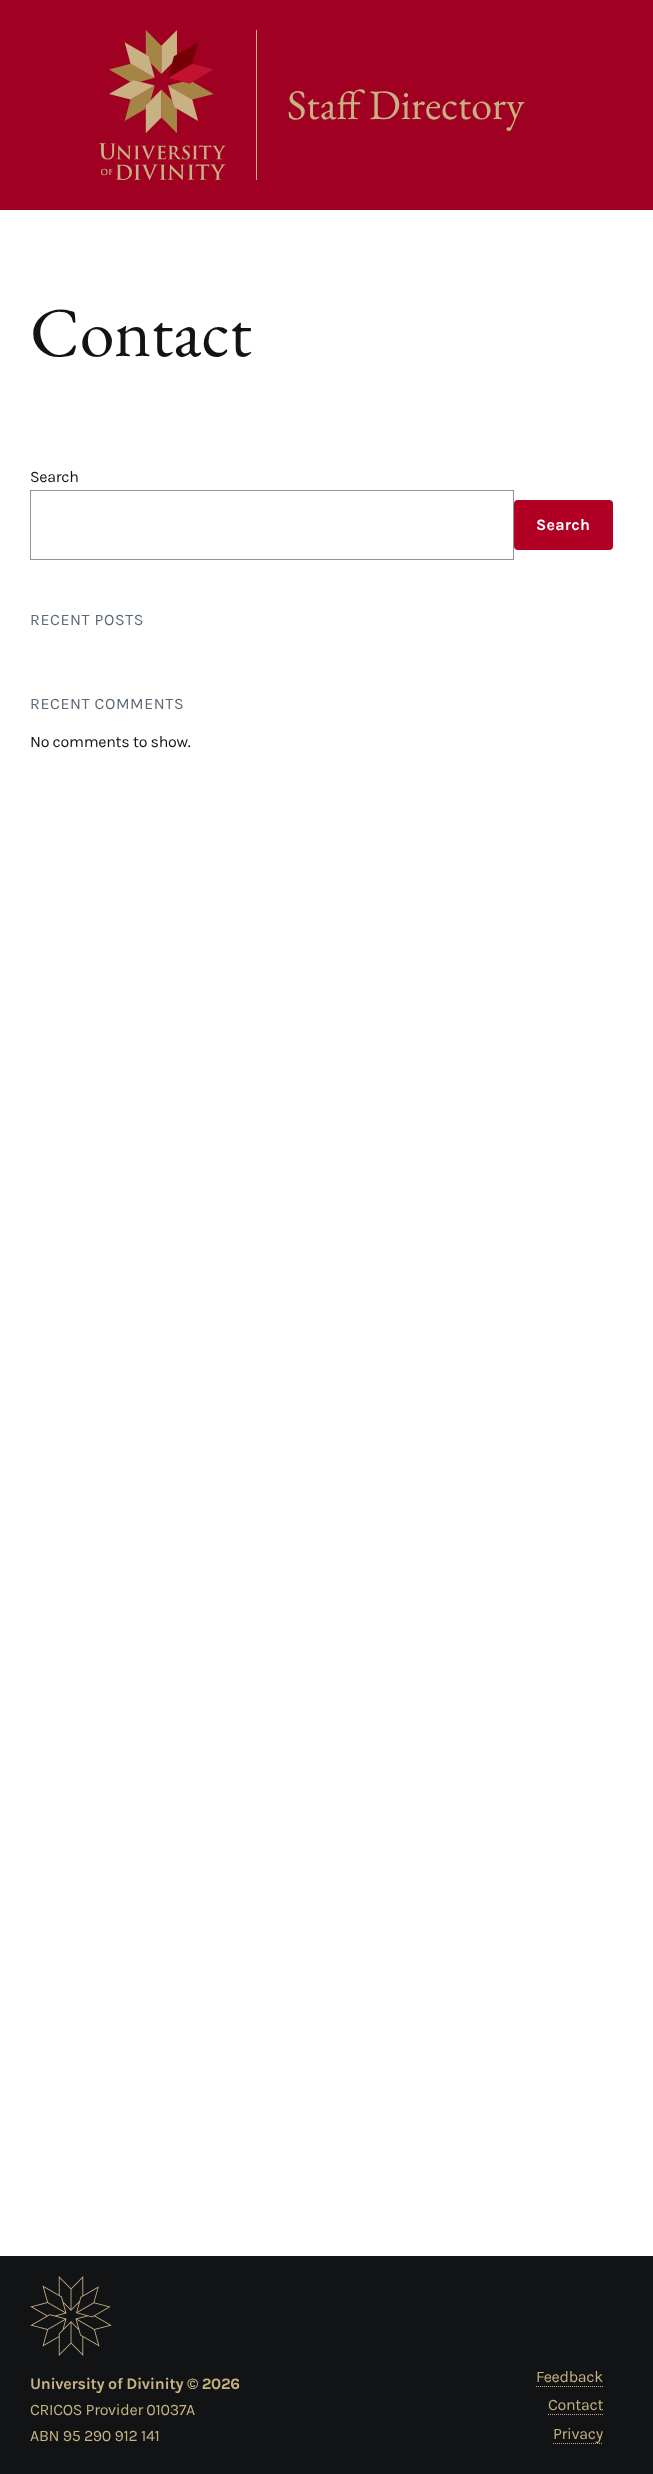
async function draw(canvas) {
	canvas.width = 653;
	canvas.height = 2474;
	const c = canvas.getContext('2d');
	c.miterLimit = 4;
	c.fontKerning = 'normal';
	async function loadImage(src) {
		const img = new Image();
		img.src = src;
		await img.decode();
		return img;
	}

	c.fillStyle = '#fff';
	c.fillRect(0, 0, 653, 2474);
	c.fillStyle = '#a00021';
	c.fillRect(0, 0, 653, 210);
	c.drawImage(await loadImage('img1.png'), 99, 30, 127, 150);
	c.fillStyle = '#c8b182';
	c.fillRect(256, 30, 1, 150);
	c.font = '42px EB Garamond';
	c.fillText('Staff Directory', 287, 119);
	c.font = '70px EB Garamond';
	c.fillStyle = '#111315';
	c.fillText('Contact', 30, 356);
	c.letterSpacing = '-0.3px';
	c.font = '16px Karla';
	c.fillText('Search', 30, 482);
	c.strokeStyle = '#949494';
	c.strokeRect(30.5, 490.5, 483, 69);
	c.fillStyle = '#b10024';
	c.beginPath();
	c.roundRect(514, 500, 99, 50, 4);
	c.fill();
	c.letterSpacing = '0.25px';
	c.font = 'bold 16px Karla';
	c.fillStyle = '#fff';
	c.fillText('Search', 536, 530);
	c.letterSpacing = '0.6px';
	c.font = '16px Karla';
	c.fillStyle = '#5b6975';
	c.fillText('RECENT POSTS', 30, 625);
	c.fillText('RECENT COMMENTS', 30, 709);
	c.letterSpacing = '-0.3px';
	c.fillStyle = '#111315';
	c.fillText('No comments to show.', 30, 747);
	c.fillRect(0, 2256, 653, 218);
	c.drawImage(await loadImage('img2.png'), 30, 2276, 82, 80);
	c.font = 'bold 16px Karla';
	c.fillStyle = '#c8b182';
	c.fillText('University of Divinity © 2026', 30, 2389);
	c.font = '16px Karla';
	for (const [text, x, y] of [
		['CRICOS Provider 01037A', 30, 2415],
		['ABN 95 290 912 141', 30, 2441],
		['Feedback', 536, 2382],
	]) {
		c.fillText(text, x, y);
	}
	c.beginPath();
	c.moveTo(536, 2386.5);
	c.lineTo(603, 2386.5);
	c.strokeStyle = '#c8b182';
	c.setLineDash([1, 1]);
	c.stroke();
	c.fillText('Contact', 548, 2410);
	c.beginPath();
	c.moveTo(548, 2414.5);
	c.lineTo(603, 2414.5);
	c.stroke();
	c.fillText('Privacy', 553, 2439);
	c.beginPath();
	c.moveTo(553, 2443.5);
	c.lineTo(603, 2443.5);
	c.stroke();
}

draw(document.querySelector('canvas'));
